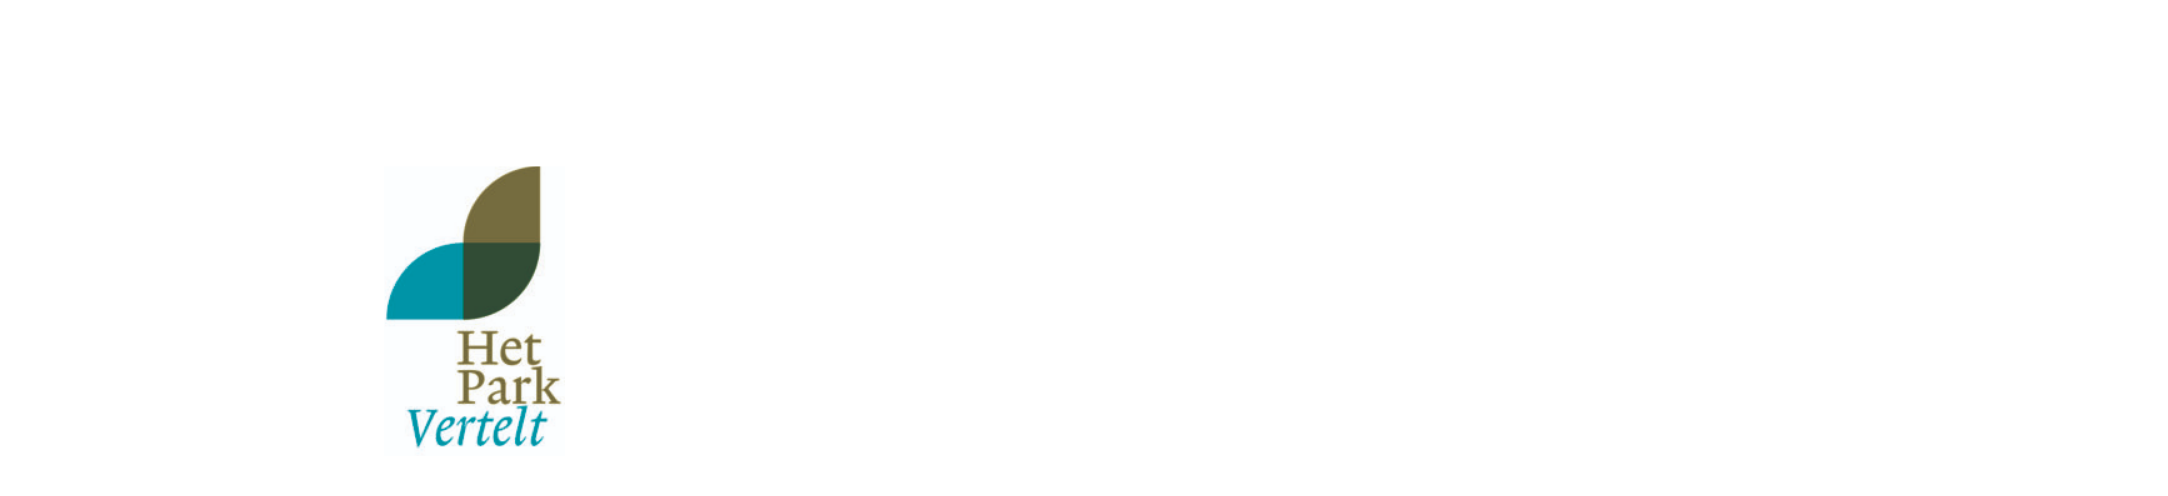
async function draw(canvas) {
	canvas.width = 2168;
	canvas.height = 496;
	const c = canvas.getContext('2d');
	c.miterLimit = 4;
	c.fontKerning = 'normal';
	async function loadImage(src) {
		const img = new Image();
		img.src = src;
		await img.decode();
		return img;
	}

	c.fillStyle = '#fff';
	c.fillRect(0, 0, 2168, 496);
	c.drawImage(await loadImage('img1.png'), 384, 166, 181, 290);
}

draw(document.querySelector('canvas'));
